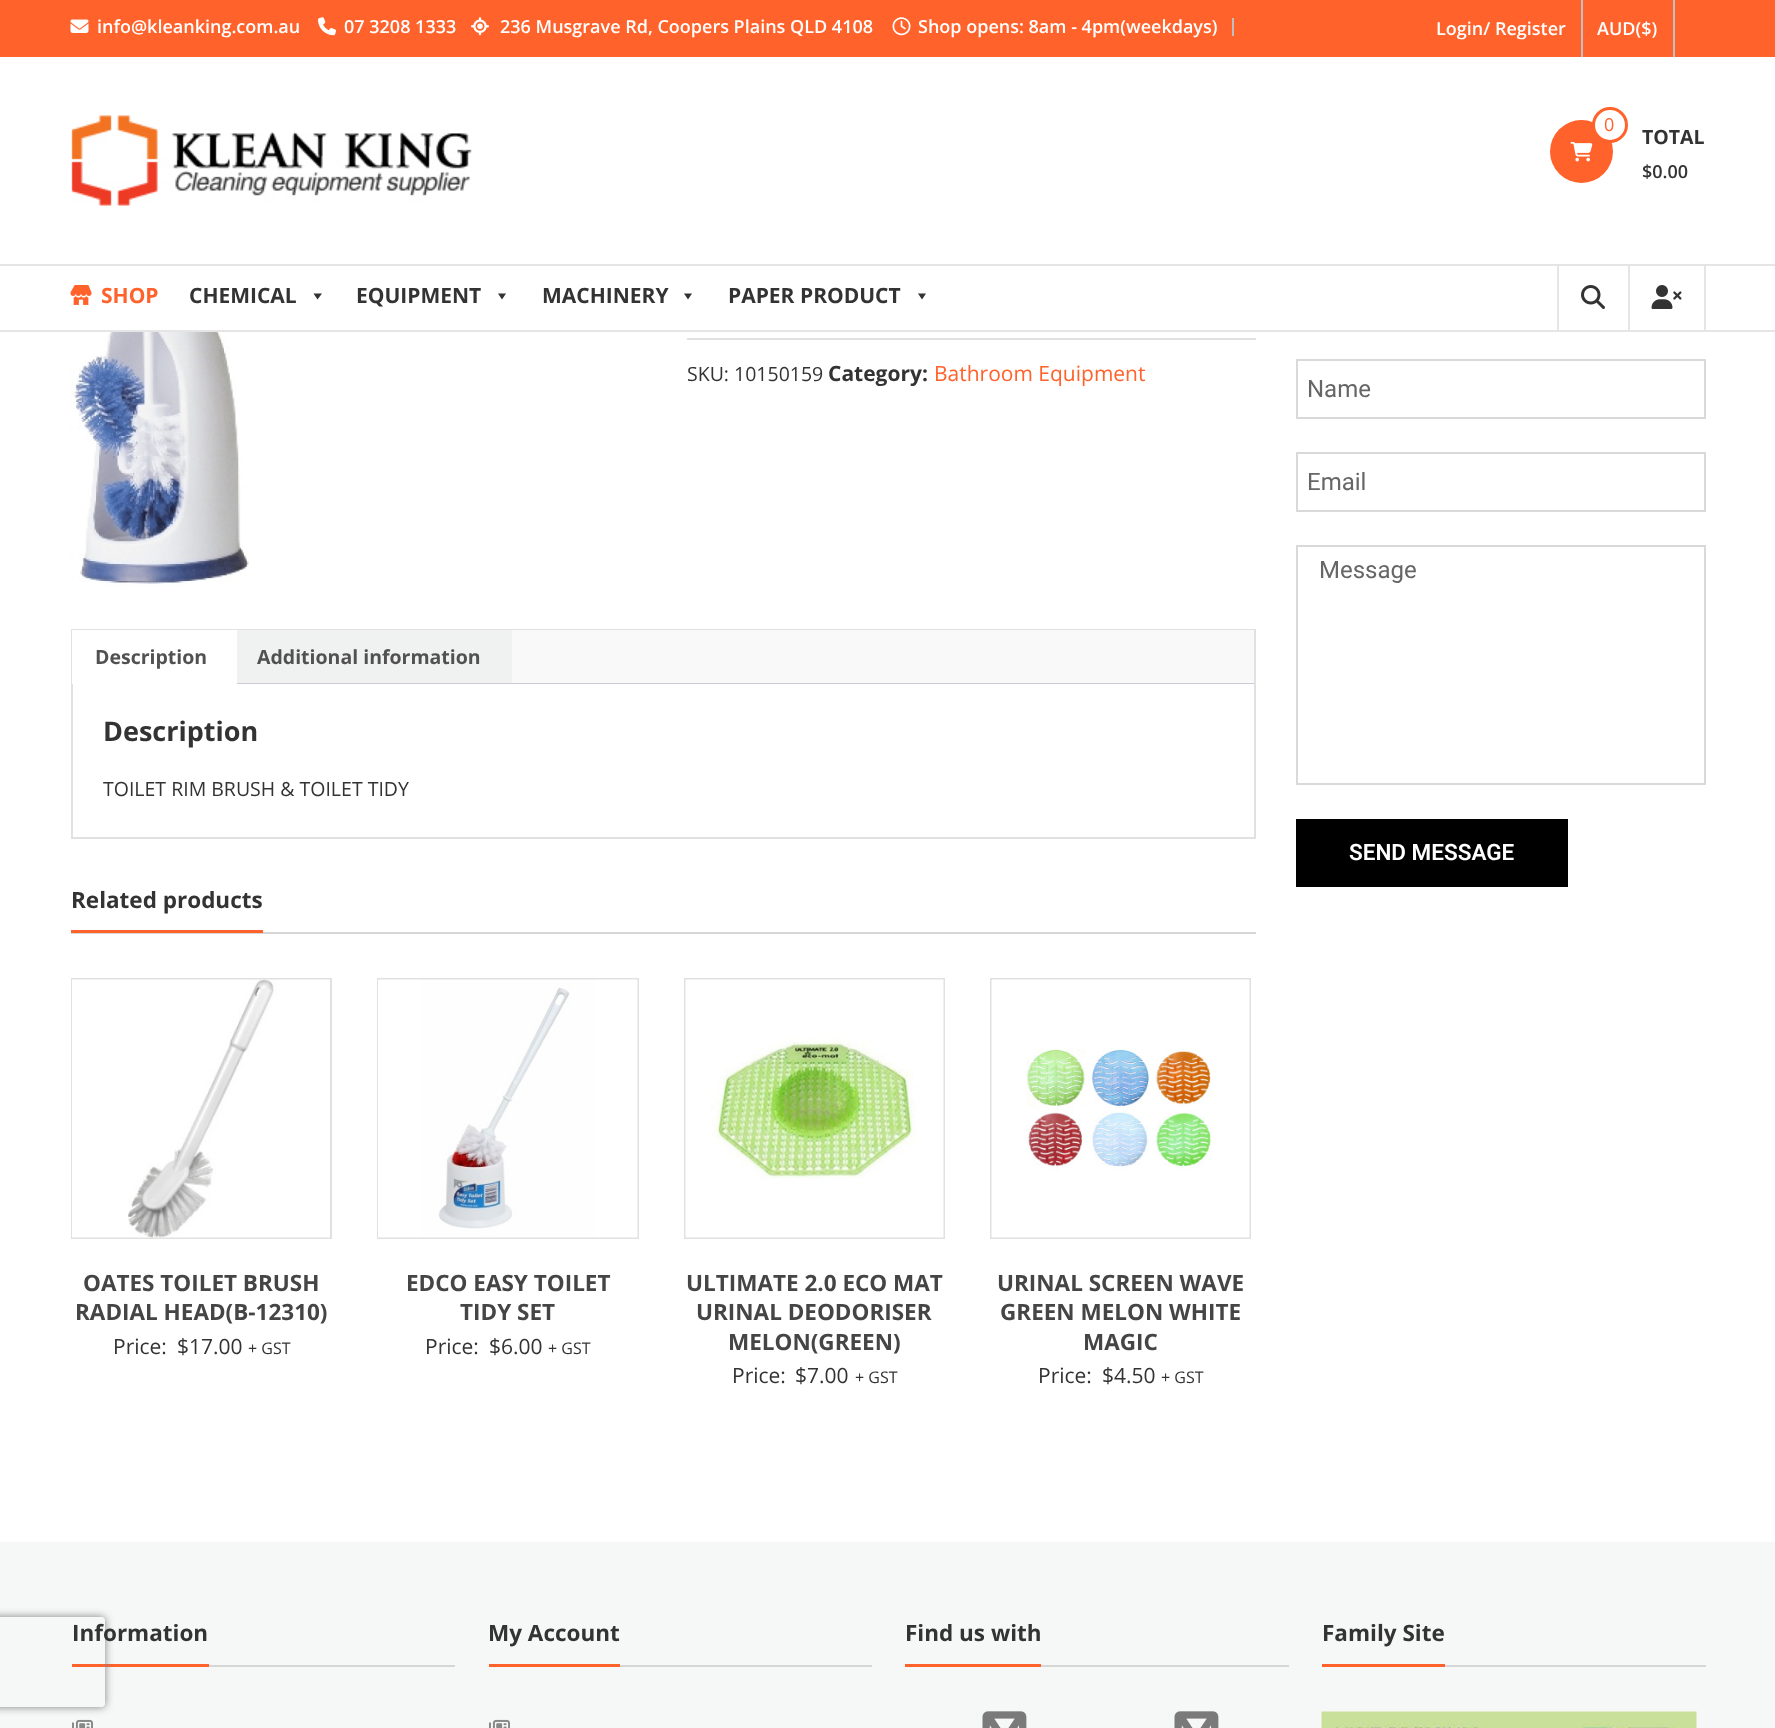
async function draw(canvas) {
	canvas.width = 1775;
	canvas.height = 1728;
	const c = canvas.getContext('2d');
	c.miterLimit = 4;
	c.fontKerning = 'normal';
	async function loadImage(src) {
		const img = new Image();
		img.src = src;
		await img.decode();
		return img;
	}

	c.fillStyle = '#fff';
	c.fillRect(0, 0, 1775, 1728);
	c.fillStyle = '#ff622a';
	c.fillRect(0, 0, 1775, 57);
	c.fillStyle = '#c0bfbf';
	c.fillRect(1232, 18, 2, 18);
	c.drawImage(await loadImage('img1.png'), 70, 19, 19, 14);
	c.font = '600 18px Open Sans';
	c.fillStyle = '#fff';
	c.fillText('info@kleanking.com.au', 97, 33);
	c.drawImage(await loadImage('img2.png'), 318, 17, 18, 19);
	c.fillText('07 3208 1333', 344, 33);
	c.drawImage(await loadImage('img3.png'), 471, 17, 18, 19);
	c.fillText('236 Musgrave Rd, Coopers Plains QLD 4108', 500, 33);
	c.drawImage(await loadImage('img4.png'), 892, 17, 19, 19);
	c.fillText('Shop opens: 8am - 4pm(weekdays)', 918, 33);
	c.fillStyle = '#c0bfbf';
	c.fillRect(1581, 0, 2, 57);
	c.fillStyle = '#fff';
	c.fillText('Login/ Register', 1436, 35);
	c.fillStyle = '#c0bfbf';
	c.fillRect(1673, 0, 2, 57);
	c.fillStyle = '#fff';
	c.fillText('AUD($)', 1597, 35);
	c.drawImage(await loadImage('img5.png'), 71, 115, 401, 91);
	c.fillStyle = '#ff622a';
	c.beginPath();
	c.arc(1581.5, 151.5, 31.5, 0, 2 * Math.PI);
	c.fill();
	c.drawImage(await loadImage('img6.png'), 1570, 141, 23, 21);
	c.fillStyle = '#fff';
	c.beginPath();
	c.arc(1610, 125, 16.5, 0, 2 * Math.PI);
	c.fill();
	c.strokeStyle = '#ff622a';
	c.lineWidth = 3;
	c.stroke();
	c.font = '18px Open Sans';
	c.fillStyle = '#ff622a';
	c.fillText('0', 1604, 131);
	c.font = 'bold 19.5px Open Sans';
	c.fillStyle = '#333';
	c.fillText('TOTAL', 1642, 144);
	c.font = '600 18px Open Sans';
	c.fillText('$0.00', 1642, 178);
	c.fillStyle = '#e5e5e5';
	c.fillRect(0, 264, 1775, 2);
	c.fillRect(0, 330, 1775, 2);
	c.drawImage(await loadImage('img7.png'), 70, 285, 22, 20);
	c.font = 'bold 21px Open Sans';
	c.fillStyle = '#ff622a';
	c.fillText('SHOP', 101, 303);
	c.fillStyle = '#333';
	c.fillText('CHEMICAL', 189, 303);
	c.beginPath();
	c.moveTo(322, 293.5);
	c.lineTo(317.5, 299.5);
	c.lineTo(313.5, 293.5);
	c.closePath();
	c.fill();
	c.fillText('EQUIPMENT', 356, 303);
	c.beginPath();
	c.moveTo(506, 293.5);
	c.lineTo(502, 299.5);
	c.lineTo(498, 293.5);
	c.closePath();
	c.fill();
	c.fillText('MACHINERY', 542, 303);
	c.beginPath();
	c.moveTo(692, 293.5);
	c.lineTo(688, 299.5);
	c.lineTo(684, 293.5);
	c.closePath();
	c.fill();
	c.fillText('PAPER PRODUCT', 728, 303);
	c.beginPath();
	c.moveTo(926, 293.5);
	c.lineTo(922, 299.5);
	c.lineTo(918, 293.5);
	c.closePath();
	c.fill();
	c.fillStyle = '#e5e5e5';
	c.fillRect(1557, 266, 2, 64);
	c.drawImage(await loadImage('img8.png'), 1581, 285, 24, 24);
	c.fillRect(1704, 266, 2, 64);
	c.fillRect(1628, 266, 2, 64);
	c.drawImage(await loadImage('img9.png'), 1651, 285, 31, 24);
	c.drawImage(await loadImage('img10.png'), 70, 332, 179, 257);
	c.fillStyle = '#e1e1e1';
	c.fillRect(687, 338, 569, 2);
	c.font = '19.5px Open Sans';
	c.fillStyle = '#333';
	c.fillText('SKU: 10150159', 687, 381);
	c.font = 'bold 21px Open Sans';
	c.fillText('Category:', 828, 381);
	c.font = '21px Open Sans';
	c.fillStyle = '#ff622a';
	c.fillText('Bathroom Equipment', 934, 381);
	c.strokeStyle = '#e1e1e1';
	c.lineWidth = 2;
	c.strokeRect(72, 630, 1183, 208);
	c.fillStyle = '#f9f9f9';
	c.fillRect(512, 630, 742, 53);
	c.fillStyle = '#fff';
	c.fillRect(72, 630, 165, 54);
	c.font = 'bold 19.5px Open Sans';
	c.fillStyle = '#515151';
	c.fillText('Description', 95, 664);
	c.fillStyle = '#f0f2f1';
	c.fillRect(237, 630, 275, 53);
	c.fillStyle = '#515151';
	c.fillText('Additional information', 257, 664);
	c.fillStyle = '#cfc8d8';
	c.fillRect(237, 683, 1017, 1);
	c.font = 'bold 27px Open Sans';
	c.fillStyle = '#333';
	c.fillText('Description', 103, 741);
	c.font = '19.5px Open Sans';
	c.fillText('TOILET RIM BRUSH & TOILET TIDY', 103, 796);
	c.fillStyle = '#d6d6d6';
	c.fillRect(71, 932, 1185, 2);
	c.fillStyle = '#ff622a';
	c.fillRect(71, 930, 192, 3);
	c.font = 'bold 22.5px Open Sans';
	c.fillStyle = '#333';
	c.fillText('Related products', 71, 908);
	c.strokeRect(72, 979, 259, 259);
	c.drawImage(await loadImage('img11.png'), 72, 979, 258, 259);
	c.fillStyle = '#454545';
	c.fillText('OATES TOILET BRUSH', 83, 1291);
	c.fillText('RADIAL HEAD(B-12310)', 75, 1320);
	c.font = '21px Open Sans';
	c.fillStyle = '#333';
	c.fillText('Price:', 113, 1354);
	c.fillText('$17.00', 177, 1354);
	c.font = '16px Open Sans';
	c.fillText('+ GST', 248, 1354);
	c.strokeRect(378, 979, 260, 259);
	c.drawImage(await loadImage('img12.png'), 378, 979, 260, 259);
	c.font = 'bold 22.5px Open Sans';
	c.fillStyle = '#454545';
	c.fillText('EDCO EASY TOILET', 406, 1291);
	c.fillText('TIDY SET', 460, 1320);
	c.font = '21px Open Sans';
	c.fillStyle = '#333';
	c.fillText('Price:', 425, 1354);
	c.fillText('$6.00', 489, 1354);
	c.font = '16px Open Sans';
	c.fillText('+ GST', 548, 1354);
	c.strokeRect(685, 979, 259, 259);
	c.drawImage(await loadImage('img13.png'), 685, 979, 259, 259);
	c.font = 'bold 22.5px Open Sans';
	c.fillStyle = '#454545';
	for (const [text, x, y] of [
		['ULTIMATE 2.0 ECO MAT', 686, 1291],
		['URINAL DEODORISER', 696, 1320],
		['MELON(GREEN)', 728, 1350],
	]) {
		c.fillText(text, x, y);
	}
	c.font = '21px Open Sans';
	c.fillStyle = '#333';
	c.fillText('Price:', 732, 1383);
	c.fillText('$7.00', 795, 1383);
	c.font = '16px Open Sans';
	c.fillText('+ GST', 855, 1383);
	c.strokeRect(991, 979, 259, 259);
	c.drawImage(await loadImage('img14.png'), 991, 979, 259, 259);
	c.font = 'bold 22.5px Open Sans';
	c.fillStyle = '#454545';
	for (const [text, x, y] of [
		['URINAL SCREEN WAVE', 997, 1291],
		['GREEN MELON WHITE', 1000, 1320],
		['MAGIC', 1083, 1350],
	]) {
		c.fillText(text, x, y);
	}
	c.font = '21px Open Sans';
	c.fillStyle = '#333';
	c.fillText('Price:', 1038, 1383);
	c.fillText('$4.50', 1102, 1383);
	c.font = '16px Open Sans';
	c.fillText('+ GST', 1161, 1383);
	c.strokeStyle = '#d9d9d9';
	c.strokeRect(1297, 360, 408, 58);
	c.font = '24px Roboto';
	c.fillStyle = '#666';
	c.fillText('Name', 1307, 397);
	c.strokeRect(1297, 453, 408, 58);
	c.fillText('Email', 1307, 490);
	c.strokeRect(1297, 546, 408, 238);
	c.fillText('Message', 1319, 578);
	c.fillStyle = '#000';
	c.fillRect(1296, 819, 272, 68);
	c.font = '600 22.5px Roboto';
	c.fillStyle = '#fff';
	c.fillText('SEND MESSAGE', 1349, 860);
	c.fillStyle = '#f6f7f7';
	c.fillRect(0, 1542, 1775, 186);
	c.fillStyle = '#ff622a';
	c.fillRect(72, 1664, 137, 3);
	c.drawImage(await loadImage('img15.png'), 72, 1719, 21, 9);
	c.save();
	c.beginPath();
	c.moveTo(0, 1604);
	c.lineTo(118, 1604);
	c.lineTo(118, 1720);
	c.lineTo(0, 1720);
	c.closePath();
	c.moveTo(-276, 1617);
	c.lineTo(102, 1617);
	c.bezierCurveTo(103.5, 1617, 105, 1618.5, 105, 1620);
	c.lineTo(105, 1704);
	c.bezierCurveTo(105, 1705.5, 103.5, 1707, 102, 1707);
	c.lineTo(-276, 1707);
	c.bezierCurveTo(-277.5, 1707, -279, 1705.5, -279, 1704);
	c.lineTo(-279, 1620);
	c.bezierCurveTo(-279, 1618.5, -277.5, 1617, -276, 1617);
	c.closePath();
	c.clip('evenodd');
	c.fillStyle = '#808080';
	c.filter = 'blur(4px)';
	c.beginPath();
	c.roundRect(-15, 1617, 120, 90, 3);
	c.fill();
	c.filter = 'none';
	c.restore();
	c.fillStyle = '#d6d6d6';
	c.fillRect(209, 1665, 246, 2);
	c.font = 'bold 22.5px Open Sans';
	c.fillStyle = '#333';
	c.fillText('Information', 72, 1641);
	c.fillStyle = '#d6d6d6';
	c.fillRect(620, 1665, 252, 2);
	c.fillStyle = '#ff622a';
	c.fillRect(489, 1664, 131, 3);
	c.fillStyle = '#333';
	c.fillText('My Account', 488, 1641);
	c.drawImage(await loadImage('img15.png'), 489, 1719, 21, 9);
	c.fillStyle = '#d6d6d6';
	c.fillRect(1041, 1665, 248, 2);
	c.fillStyle = '#ff622a';
	c.fillRect(905, 1664, 136, 3);
	c.fillStyle = '#333';
	c.fillText('Find us with', 905, 1641);
	c.drawImage(await loadImage('img16.png'), 982, 1711, 45, 17);
	c.drawImage(await loadImage('img16.png'), 1174, 1711, 45, 17);
	c.fillStyle = '#d6d6d6';
	c.fillRect(1445, 1665, 261, 2);
	c.fillStyle = '#ff622a';
	c.fillRect(1322, 1664, 123, 3);
	c.fillStyle = '#333';
	c.fillText('Family Site', 1322, 1641);
	c.drawImage(await loadImage('img17.png'), 1321, 1711, 376, 17);
}

draw(document.querySelector('canvas'));
